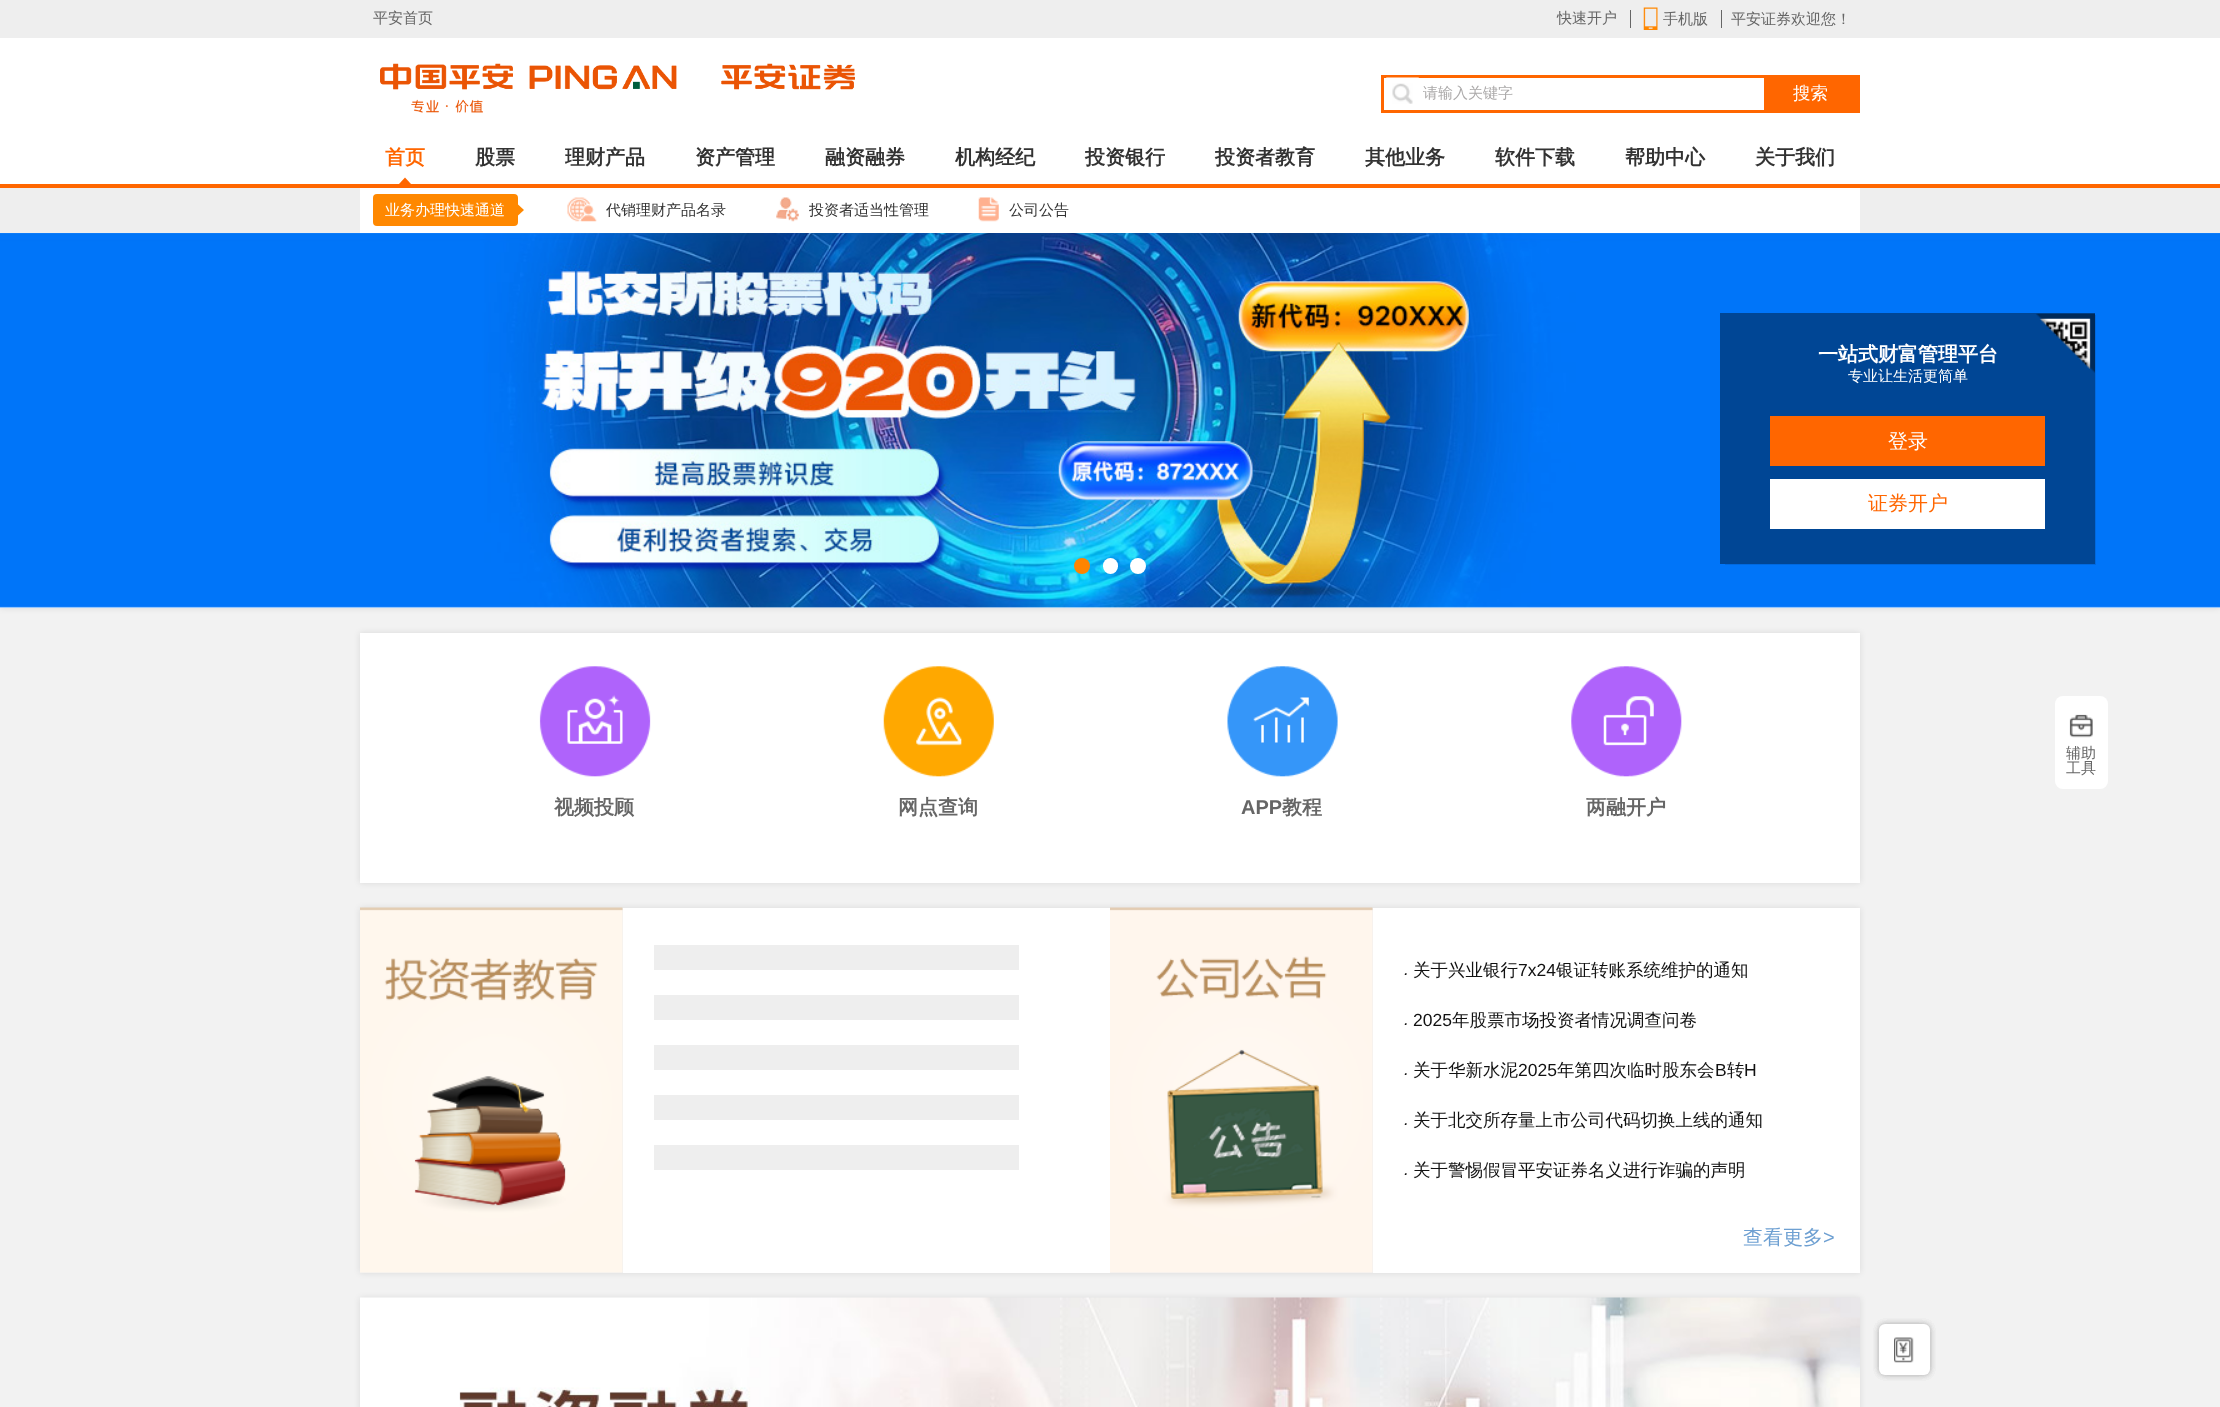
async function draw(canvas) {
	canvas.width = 2220;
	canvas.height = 1407;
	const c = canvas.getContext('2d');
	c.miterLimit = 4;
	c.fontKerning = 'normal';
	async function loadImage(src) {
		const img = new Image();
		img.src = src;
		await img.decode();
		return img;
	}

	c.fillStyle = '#f2f2f2';
	c.fillRect(0, 0, 2220, 1407);
	c.fillStyle = '#eee';
	c.fillRect(0, 0, 2220, 38);
	c.font = '500 15px WenQuanYi Zen Hei';
	c.fillStyle = '#666';
	c.fillText('平安首页', 373, 23);
	c.fillRect(1630, 10, 1, 18);
	c.fillText('快速开户', 1557, 23);
	c.fillRect(1721, 10, 1, 18);
	c.drawImage(await loadImage('img1.png'), 1643, 7, 15, 23);
	c.fillText('手机版', 1663, 24);
	c.fillText('平安证券欢迎您！', 1731, 24);
	c.fillStyle = '#fff';
	c.fillRect(0, 38, 2220, 146);
	c.drawImage(await loadImage('img2.png'), 380, 63, 475, 50);
	c.strokeStyle = '#f60';
	c.lineWidth = 3;
	c.strokeRect(1382.5, 76.5, 476, 35);
	c.drawImage(await loadImage('img3.png'), 1386, 77, 33, 27);
	c.fillStyle = '#aba9a9';
	c.fillText('请输入关键字', 1423, 98);
	c.fillStyle = '#f60';
	c.fillRect(1764, 78, 93, 32);
	c.font = '500 17.5px WenQuanYi Zen Hei';
	c.fillStyle = '#fff';
	c.fillText('搜索', 1793, 99);
	c.fillStyle = '#0000001a';
	c.filter = 'blur(3px)';
	c.beginPath();
	c.rect(0, 233, 2220, 375);
	c.fill();
	c.filter = 'none';
	c.fillStyle = '#eee';
	c.fillRect(0, 188, 2220, 45);
	c.fillStyle = '#f60';
	c.fillRect(0, 184, 2220, 4);
	c.font = 'bold 20px WenQuanYi Zen Hei';
	c.fillText('首页', 385, 164);
	c.beginPath();
	c.moveTo(411, 184);
	c.lineTo(399, 184);
	c.lineTo(405, 177.5);
	c.closePath();
	c.fill();
	c.fillStyle = '#fff';
	c.fillRect(360, 188, 1500, 45);
	c.fillStyle = '#f80';
	c.beginPath();
	c.roundRect(373, 194, 145, 32, 4);
	c.fill();
	c.font = '500 15px WenQuanYi Zen Hei';
	c.fillStyle = '#fff';
	c.fillText('业务办理快速通道', 385, 215);
	c.fillStyle = '#f80';
	c.beginPath();
	c.moveTo(517.5, 216);
	c.lineTo(517.5, 204);
	c.lineTo(524, 210);
	c.closePath();
	c.fill();
	c.drawImage(await loadImage('img4.png'), 567, 197, 30, 25);
	c.fillStyle = '#333';
	c.fillText('代销理财产品名录', 606, 215);
	c.drawImage(await loadImage('img5.png'), 776, 197, 23, 25);
	c.fillText('投资者适当性管理', 809, 215);
	c.drawImage(await loadImage('img6.png'), 978, 197, 21, 25);
	c.fillText('公司公告', 1009, 215);
	c.font = 'bold 20px WenQuanYi Zen Hei';
	for (const [text, x, y] of [
		['投资者教育', 1215, 164],
		['股票', 475, 164],
		['理财产品', 565, 164],
		['资产管理', 695, 164],
		['融资融券', 825, 164],
		['机构经纪', 955, 164],
		['投资银行', 1085, 164],
		['其他业务', 1365, 164],
		['软件下载', 1495, 164],
		['帮助中心', 1625, 164],
		['关于我们', 1755, 164],
	]) {
		c.fillText(text, x, y);
	}
	c.fillStyle = '#fff';
	c.fillRect(0, 607, 2220, 1);
	c.drawImage(await loadImage('img7.png'), 0, 607, 2220, 1);
	c.drawImage(await loadImage('img8.png'), 0, 233, 2220, 375);
	c.fillStyle = '#ff8400';
	c.beginPath();
	c.arc(1082, 566, 8, 0, 2 * Math.PI);
	c.fill();
	c.fillStyle = '#fff';
	c.beginPath();
	c.roundRect(1103, 558, 15, 16, 7.5);
	c.fill();
	c.beginPath();
	c.arc(1138, 566, 8, 0, 2 * Math.PI);
	c.fill();
	c.fillStyle = '#0069e0';
	c.beginPath();
	c.moveTo(1725, 564);
	c.lineTo(1725, 565);
	c.lineTo(2096, 565);
	c.lineTo(2096, 315);
	c.lineTo(2095, 315);
	c.lineTo(2095, 564);
	c.closePath();
	c.fill();
	c.fillStyle = '#004695';
	c.fillRect(1720, 313, 375, 251);
	c.fillStyle = '#fff';
	c.fillText('一站式财富管理平台', 1818, 361);
	c.font = '500 15px WenQuanYi Zen Hei';
	c.fillText('专业让生活更简单', 1848, 381);
	c.fillStyle = '#f60';
	c.fillRect(1770, 416, 275, 50);
	c.font = '500 20px WenQuanYi Zen Hei';
	c.fillStyle = '#fff';
	c.fillText('登录', 1888, 448);
	c.fillRect(1770, 479, 275, 50);
	c.fillStyle = '#f60';
	c.fillText('证券开户', 1868, 510);
	c.drawImage(await loadImage('img9.png'), 2036, 313, 59, 60);
	c.fillStyle = '#fff';
	c.beginPath();
	c.roundRect(2055, 696, 53, 93, 8);
	c.fill();
	c.drawImage(await loadImage('img10.png'), 2069, 714, 24, 24);
	c.font = '500 15px WenQuanYi Zen Hei';
	c.fillStyle = '#666';
	c.fillText('辅助', 2066, 758);
	c.fillText('工具', 2066, 773);
	c.fillStyle = '#0000001a';
	c.filter = 'blur(3px)';
	c.beginPath();
	c.rect(360, 633, 1500, 250);
	c.fill();
	c.filter = 'none';
	c.fillStyle = '#fff';
	c.fillRect(360, 633, 1500, 250);
	c.drawImage(await loadImage('img11.png'), 539, 666, 112, 111);
	c.font = 'bold 20px WenQuanYi Zen Hei';
	c.fillStyle = '#666';
	c.fillText('视频投顾', 554, 814);
	c.drawImage(await loadImage('img12.png'), 883, 666, 111, 111);
	c.fillText('网点查询', 898, 814);
	c.drawImage(await loadImage('img13.png'), 1227, 666, 111, 111);
	c.font = 'bold 20px Liberation Sans';
	c.fillText('APP', 1241, 814);
	c.font = 'bold 20px WenQuanYi Zen Hei';
	c.fillText('教程', 1282, 814);
	c.drawImage(await loadImage('img14.png'), 1571, 666, 111, 111);
	c.fillText('两融开户', 1586, 814);
	c.fillStyle = '#0000001a';
	c.filter = 'blur(3px)';
	c.beginPath();
	c.rect(360, 908, 1500, 365);
	c.fill();
	c.filter = 'none';
	c.fillStyle = '#fff';
	c.fillRect(623, 908, 1237, 365);
	c.fillStyle = '#eee';
	c.fillRect(360, 908, 263, 365);
	c.drawImage(await loadImage('img15.png'), 360, 907, 263, 366);
	for (const [x, y, w, h, color] of [
		[654, 945, 365, 25, '#eee'],
		[654, 995, 365, 25, '#eee'],
		[654, 1045, 365, 25, '#eee'],
		[654, 1095, 365, 25, '#eee'],
		[654, 1145, 365, 25, '#eee'],
		[1110, 908, 263, 365, '#eee'],
	]) {
		c.fillStyle = color;
		c.fillRect(x, y, w, h);
	}
	c.drawImage(await loadImage('img16.png'), 1110, 907, 263, 366);
	c.font = 'italic 17.5px Liberation Sans';
	c.fillStyle = '#111';
	c.fillText('.', 1404, 975);
	c.font = '500 17.5px WenQuanYi Zen Hei';
	c.fillText('关于兴业银行', 1413, 976);
	c.font = '17.5px Liberation Sans';
	c.fillText('7x24', 1518, 976);
	c.font = '500 17.5px WenQuanYi Zen Hei';
	c.fillText('银证转账系统维护的通知', 1556, 976);
	c.font = 'italic 17.5px Liberation Sans';
	c.fillText('.', 1404, 1025);
	c.font = '17.5px Liberation Sans';
	c.fillText('2025', 1413, 1026);
	c.font = '500 17.5px WenQuanYi Zen Hei';
	c.fillText('年股票市场投资者情况调查问卷', 1452, 1026);
	c.font = 'italic 17.5px Liberation Sans';
	c.fillText('.', 1404, 1075);
	c.font = '500 17.5px WenQuanYi Zen Hei';
	c.fillText('关于华新水泥', 1413, 1076);
	c.font = '17.5px Liberation Sans';
	c.fillText('2025', 1518, 1076);
	c.font = '500 17.5px WenQuanYi Zen Hei';
	c.fillText('年第四次临时股东会', 1557, 1076);
	c.font = '17.5px Liberation Sans';
	c.fillText('B', 1715, 1076);
	c.font = '500 17.5px WenQuanYi Zen Hei';
	c.fillText('转', 1727, 1076);
	c.font = '17.5px Liberation Sans';
	c.fillText('H', 1744, 1076);
	c.font = 'italic 17.5px Liberation Sans';
	c.fillText('.', 1404, 1125);
	c.font = '500 17.5px WenQuanYi Zen Hei';
	c.fillText('关于北交所存量上市公司代码切换上线的通知', 1413, 1126);
	c.font = 'italic 17.5px Liberation Sans';
	c.fillText('.', 1404, 1175);
	c.font = '500 17.5px WenQuanYi Zen Hei';
	c.fillText('关于警惕假冒平安证券名义进行诈骗的声明', 1413, 1176);
	c.font = '500 20px WenQuanYi Zen Hei';
	c.fillStyle = '#6ea0d2';
	c.fillText('查看更多', 1743, 1244);
	c.font = '20px Liberation Sans';
	c.fillText('>', 1823, 1244);
	c.fillStyle = '#0000001a';
	c.filter = 'blur(3px)';
	c.beginPath();
	c.rect(360, 1298, 1500, 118);
	c.fill();
	c.filter = 'none';
	c.drawImage(await loadImage('img17.png'), 360, 1297, 1500, 110);
	c.fillStyle = '#00000014';
	c.filter = 'blur(3px)';
	c.beginPath();
	c.roundRect(1879, 1324, 51, 51, 6);
	c.fill();
	c.filter = 'none';
	c.filter = 'blur(3px)';
	c.beginPath();
	c.roundRect(1879, 1324, 51, 51, 6);
	c.fill();
	c.filter = 'none';
	c.filter = 'blur(3px)';
	c.beginPath();
	c.roundRect(1879, 1324, 51, 51, 6);
	c.fill();
	c.filter = 'none';
	c.filter = 'blur(3px)';
	c.beginPath();
	c.roundRect(1879, 1324, 51, 51, 6);
	c.fill();
	c.filter = 'none';
	c.fillStyle = '#fff';
	c.beginPath();
	c.roundRect(1879, 1324, 51, 51, 6);
	c.fill();
	c.drawImage(await loadImage('img18.png'), 1894, 1337, 20, 26);
}

draw(document.querySelector('canvas'));
